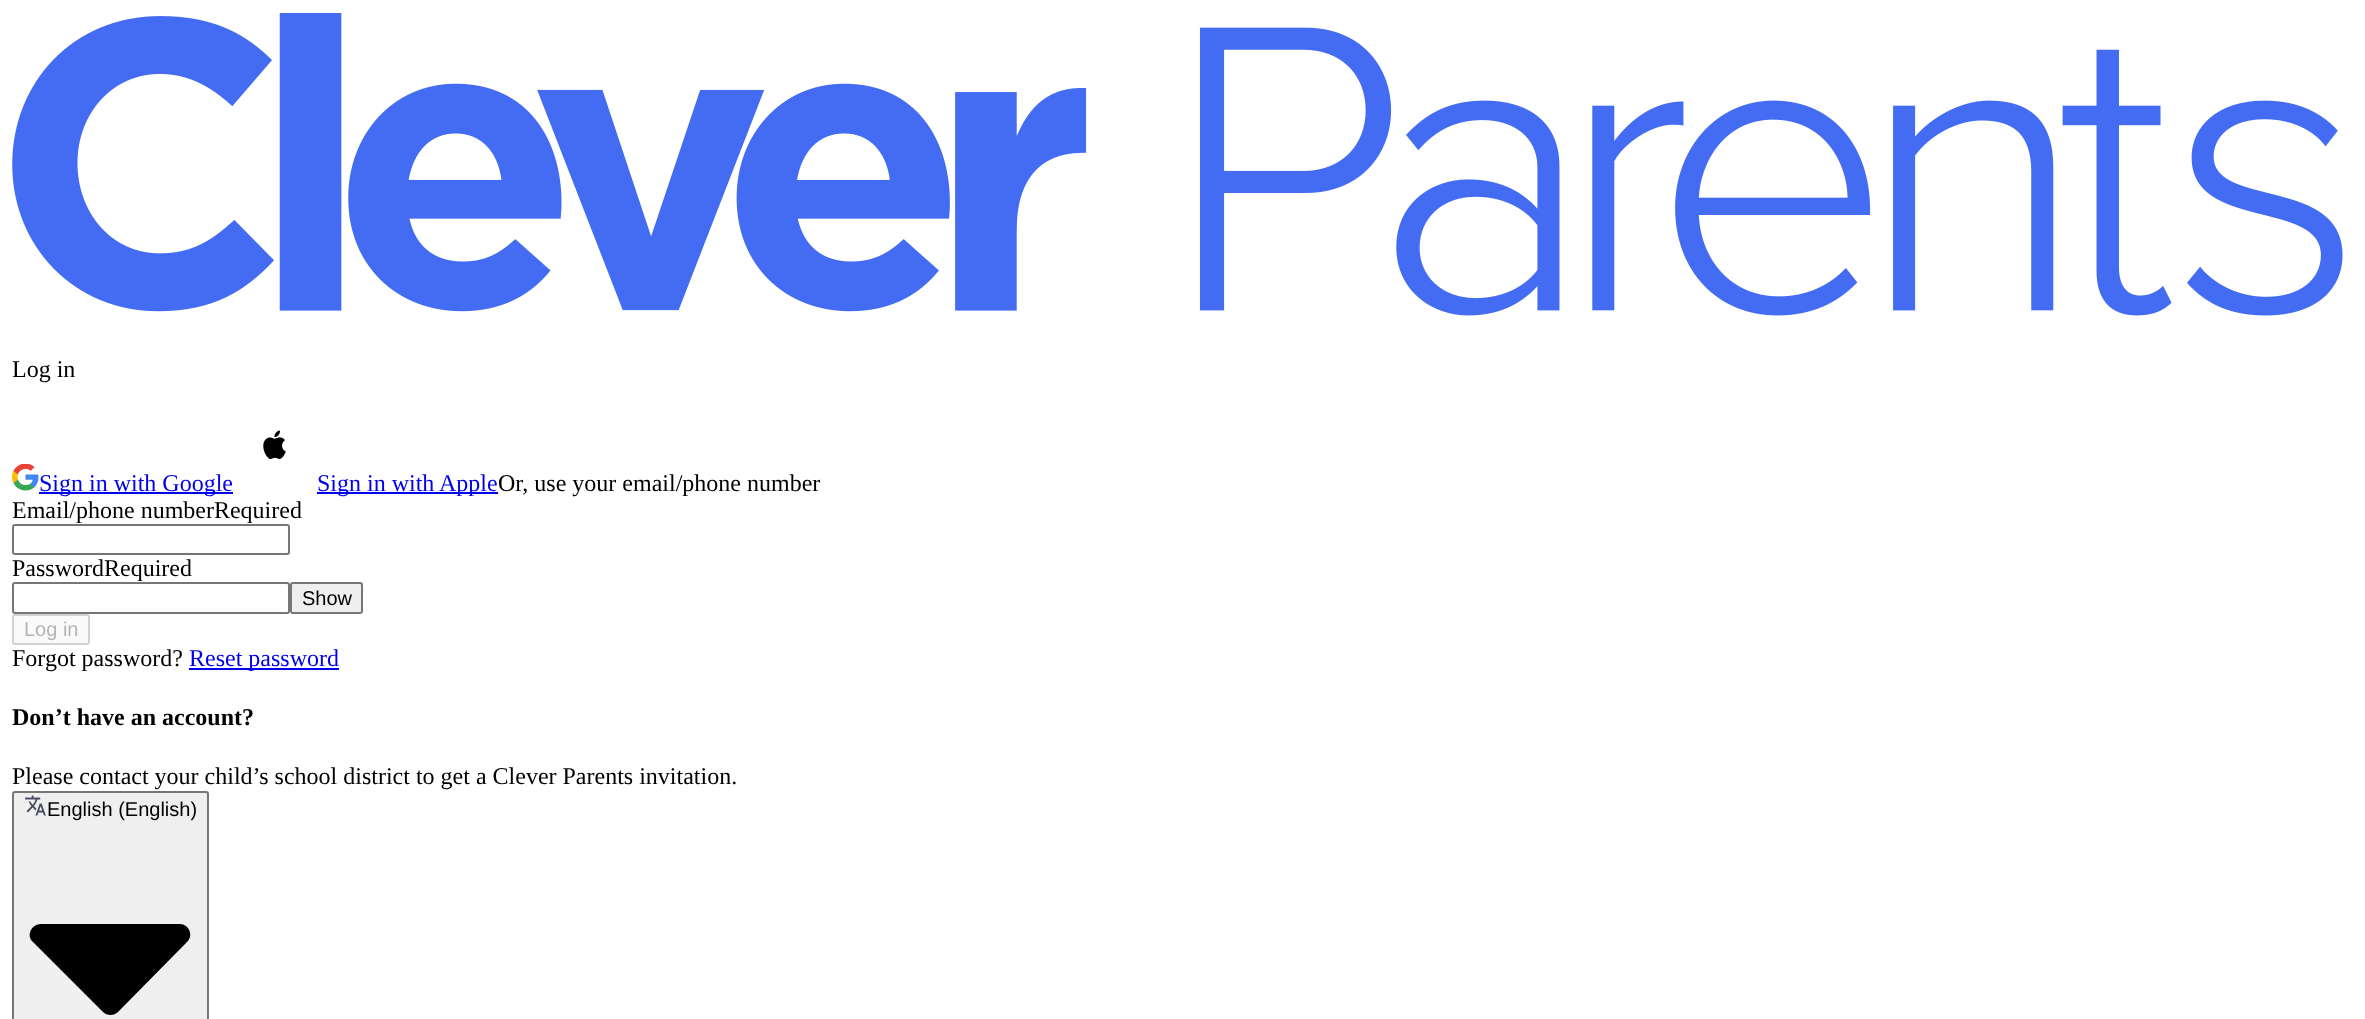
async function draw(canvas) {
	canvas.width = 2365;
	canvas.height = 1019;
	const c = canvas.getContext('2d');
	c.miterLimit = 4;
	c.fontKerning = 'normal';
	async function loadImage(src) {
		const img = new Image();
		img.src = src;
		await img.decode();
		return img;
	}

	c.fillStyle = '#fff';
	c.fillRect(0, 0, 2365, 1019);
	c.drawImage(await loadImage('img1.png'), 12, 13, 2331, 303);
	c.font = '24px Liberation Serif';
	c.fillStyle = '#000';
	c.fillText('Log in', 12, 377);
	c.drawImage(await loadImage('img2.png'), 263, 430, 23, 29);
	c.drawImage(await loadImage('img3.png'), 12, 464, 27, 27);
	c.fillStyle = '#00e';
	c.fillRect(39, 492, 194, 2);
	c.fillText('Sign in with Google', 39, 491);
	c.fillRect(317, 492, 181, 2);
	c.fillText('Sign in with Apple', 317, 491);
	c.fillStyle = '#000';
	c.fillText('Or, use your email/phone number', 498, 491);
	c.fillText('Email/phone numberRequired', 12, 518);
	c.beginPath();
	c.roundRect(13, 525, 276, 29, 2);
	c.strokeStyle = '#767676';
	c.lineWidth = 2;
	c.stroke();
	c.fillText('PasswordRequired', 12, 576);
	c.beginPath();
	c.roundRect(13, 583, 276, 30, 2);
	c.stroke();
	c.fillStyle = '#efefef';
	c.beginPath();
	c.roundRect(291, 583, 71, 30, 2);
	c.fill();
	c.stroke();
	c.font = '20px Liberation Sans';
	c.fillStyle = '#000';
	c.fillText('Show', 302, 605);
	c.fillStyle = '#fafafa';
	c.beginPath();
	c.roundRect(13, 615, 76, 29, 2);
	c.fill();
	c.strokeStyle = '#d2d2d2';
	c.stroke();
	c.fillStyle = '#b4b4b4';
	c.fillText('Log in', 24, 636);
	c.font = '24px Liberation Serif';
	c.fillStyle = '#000';
	c.fillText('Forgot password?', 12, 666);
	c.fillStyle = '#00e';
	c.fillRect(189, 668, 150, 2);
	c.fillText('Reset password', 189, 666);
	c.font = 'bold 24px Liberation Serif';
	c.fillStyle = '#000';
	c.fillText('Don’t have an account?', 12, 725);
	c.font = '24px Liberation Serif';
	c.fillText('Please contact your child’s school district to get a Clever Parents invitation.', 12, 784);
	c.fillStyle = '#efefef';
	c.beginPath();
	c.roundRect(13, 792, 195, 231, 2);
	c.fill();
	c.strokeStyle = '#767676';
	c.stroke();
	c.drawImage(await loadImage('img4.png'), 25, 795, 21, 21);
	c.font = '20px Liberation Sans';
	c.fillStyle = '#000';
	c.fillText('English (English)', 47, 816);
	c.beginPath();
	c.moveTo(41, 924);
	c.lineTo(180, 924);
	c.bezierCurveTo(189, 924, 194, 936, 187, 942);
	c.lineTo(118, 1012);
	c.bezierCurveTo(114, 1016, 107, 1016, 103, 1012);
	c.lineTo(33, 942);
	c.bezierCurveTo(26, 936, 31, 924, 41, 924);
	c.closePath();
	c.fill();
}

draw(document.querySelector('canvas'));
